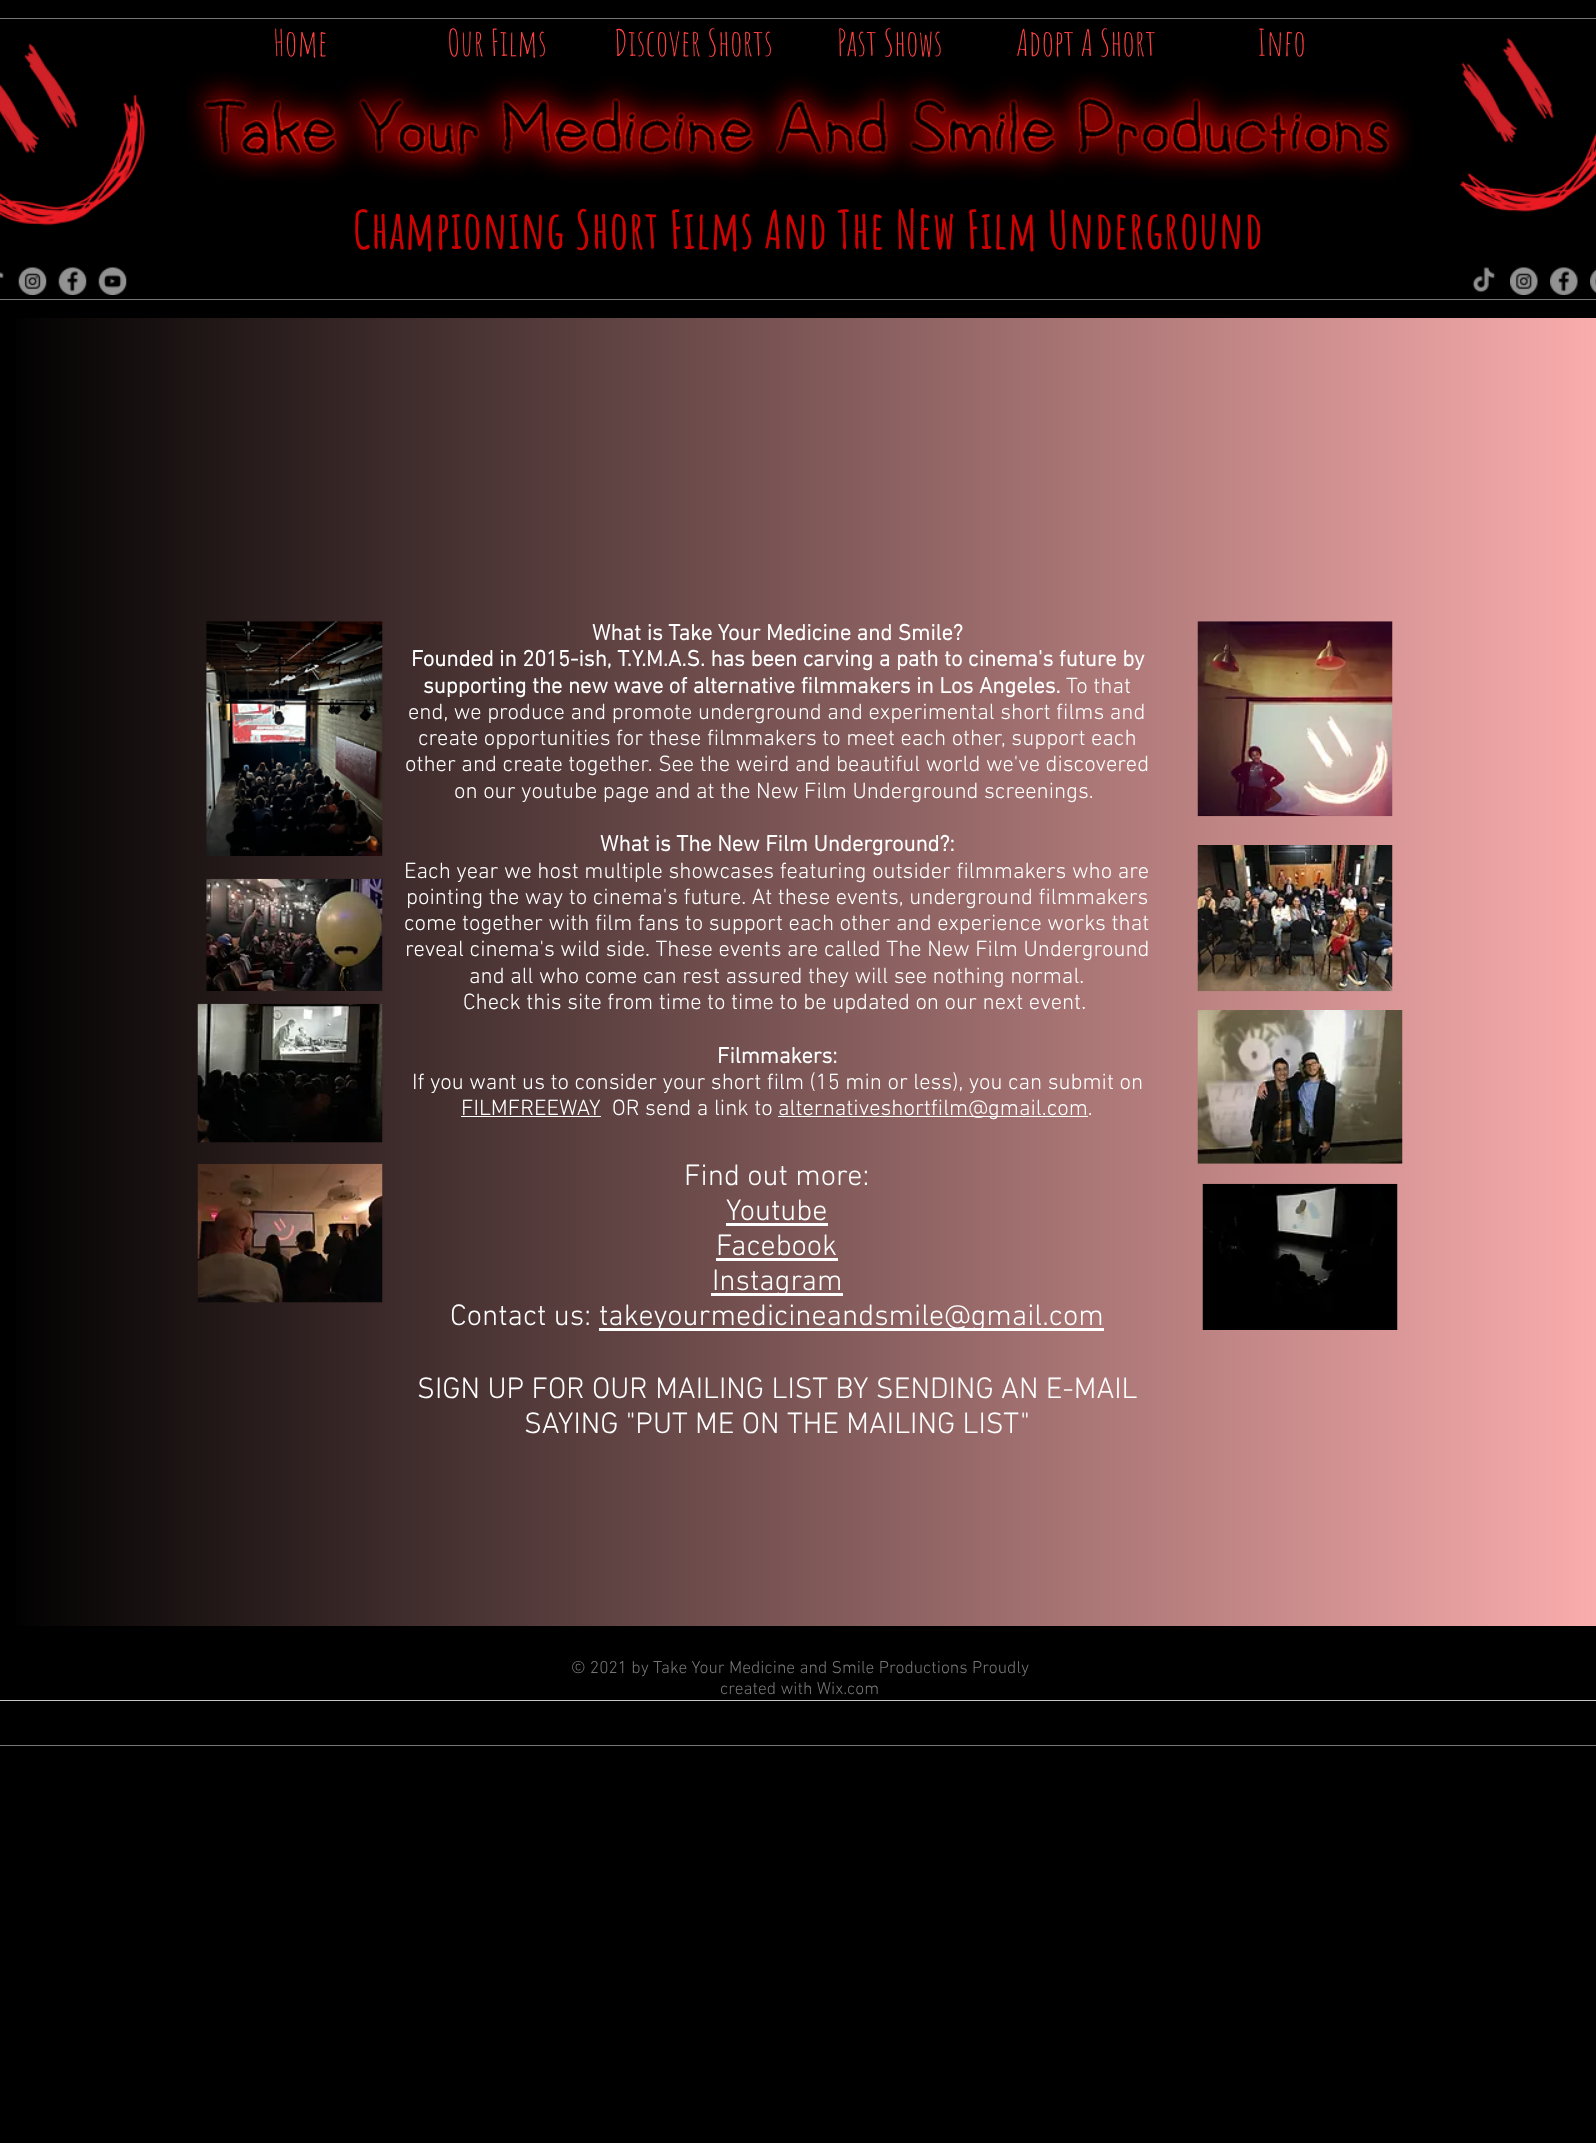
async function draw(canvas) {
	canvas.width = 1596;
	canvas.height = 2143;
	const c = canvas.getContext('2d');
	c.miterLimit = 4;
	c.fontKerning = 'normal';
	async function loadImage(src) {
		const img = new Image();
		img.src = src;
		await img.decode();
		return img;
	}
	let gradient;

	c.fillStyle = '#000';
	c.fillRect(0, 0, 1596, 2143);
	c.fillStyle = '#767676';
	c.fillRect(0, 18, 1596, 1);
	c.fillRect(0, 299, 1596, 1);
	c.drawImage(await loadImage('img1.png'), 0, 43, 146, 183);
	c.font = '36.25px Amatic SC';
	c.fillStyle = '#ff4040';
	for (const [text, x, y] of [
		['Home', 273, 56],
		['Our Films', 447, 56],
		['Discover Shorts', 614, 56],
		['Past Shows', 837, 56],
		['Adopt A Short', 1016, 56],
		['Info', 1257, 56],
	]) {
		c.fillText(text, x, y);
	}
	c.drawImage(await loadImage('img2.png'), 1459, 37, 137, 175);
	c.drawImage(await loadImage('img3.png'), 186, 72, 1227, 109);
	c.letterSpacing = '0.53px';
	c.font = 'bold 52.5px Amatic SC';
	c.fillStyle = '#cd0202';
	c.fillText('Championing Short Films And The New Film Underground', 353, 249);
	c.drawImage(await loadImage('img4.png'), 0, 272, 4, 7);
	c.drawImage(await loadImage('img5.png'), 18, 267, 29, 28);
	c.drawImage(await loadImage('img6.png'), 58, 267, 29, 28);
	c.drawImage(await loadImage('img7.png'), 98, 267, 29, 28);
	c.drawImage(await loadImage('img8.png'), 1472, 267, 24, 26);
	c.drawImage(await loadImage('img9.png'), 1510, 267, 28, 28);
	c.drawImage(await loadImage('img10.png'), 1550, 267, 28, 28);
	c.drawImage(await loadImage('img11.png'), 1590, 269, 6, 24);
	gradient = c.createLinearGradient(0, 972, 1596, 972);
	gradient.addColorStop(0, '#000');
	gradient.addColorStop(1, '#faadad');
	c.fillStyle = gradient;
	c.fillRect(16, 318, 1580, 1308);
	c.drawImage(await loadImage('img12.png'), 206, 621, 177, 235);
	c.letterSpacing = '0px';
	c.font = 'bold 22.5px "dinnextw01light"';
	c.fillStyle = '#fff';
	for (const [text, x, y] of [
		['What is Take Your Medicine and Smile?', 592, 640],
		['Founded in 2015-ish, T.Y.M.A.S. has been carving a path to cinema\'s future by', 411, 666],
		['supporting the new wave of alternative filmmakers in Los Angeles.', 423, 693],
	]) {
		c.fillText(text, x, y);
	}
	c.font = '300 22.5px "dinnextw01light"';
	for (const [text, x, y] of [
		['To that', 1066, 693],
		['end, we produce and promote underground and experimental short films and', 408, 719],
		['create opportunities for these filmmakers to meet each other, support each', 418, 745],
		['other and create together. See the weird and beautiful world we\'ve discovered', 405, 771],
		['on our youtube page and at the New Film Underground screenings.', 454, 798],
	]) {
		c.fillText(text, x, y);
	}
	c.font = 'bold 22.5px "dinnextw01light"';
	c.fillText('What is The New Film Underground?:', 600, 851);
	c.font = '300 22.5px "dinnextw01light"';
	for (const [text, x, y] of [
		['Each year we host multiple showcases featuring outsider filmmakers who are', 404, 878],
		['pointing the way to cinema\'s future. At these events, underground filmmakers', 406, 904],
		['come together with film fans to support each other and experience works that', 404, 930],
		['reveal cinema\'s wild side. These events are called The New Film Underground', 405, 956],
		['and all who come can rest assured they will see nothing normal.', 469, 983],
		['Check this site from time to time to be updated on our next event.', 463, 1009],
	]) {
		c.fillText(text, x, y);
	}
	c.font = 'bold 22.5px "dinnextw01light"';
	c.fillText('Filmmakers:', 717, 1063);
	c.font = '300 22.5px "dinnextw01light"';
	c.fillText('If you want us to consider your short film (15 min or less), you can submit on', 412, 1089);
	c.fillText('FILMFREEWAY', 461, 1115);
	c.fillRect(461, 1116, 140, 1);
	c.fillText('OR send a link to', 612, 1115);
	c.fillRect(778, 1116, 310, 1);
	c.fillText('alternativeshortfilm@gmail.com.', 778, 1115);
	c.font = '300 30px "dinnextw01light"';
	c.fillText('Find out more:', 684, 1185);
	c.fillText('Youtube', 726, 1220);
	c.fillRect(726, 1223, 102, 3);
	c.fillText('Facebook', 716, 1255);
	c.fillRect(716, 1258, 122, 3);
	c.fillRect(711, 1293, 132, 3);
	c.fillText('Instagram', 712, 1290);
	c.fillText('Contact us:', 450, 1325);
	c.fillRect(599, 1328, 505, 3);
	for (const [text, x, y] of [
		['takeyourmedicineandsmile@gmail.com', 599, 1325],
		['SIGN UP FOR OUR MAILING LIST BY SENDING AN E-MAIL', 417, 1398],
		['SAYING "PUT ME ON THE MAILING LIST"', 524, 1433],
	]) {
		c.fillText(text, x, y);
	}
	c.drawImage(await loadImage('img13.png'), 1197, 621, 196, 196);
	c.drawImage(await loadImage('img14.png'), 206, 878, 177, 113);
	c.drawImage(await loadImage('img15.png'), 1197, 845, 196, 147);
	c.drawImage(await loadImage('img16.png'), 197, 1003, 186, 140);
	c.drawImage(await loadImage('img17.png'), 1197, 1010, 206, 154);
	c.drawImage(await loadImage('img18.png'), 197, 1163, 186, 140);
	c.drawImage(await loadImage('img19.png'), 1202, 1183, 196, 147);
	c.font = '300 17.5px "dinnextw01light"';
	c.fillStyle = '#767676';
	c.fillText('© 2021 by Take Your Medicine and Smile Productions Proudly', 571, 1673);
	c.fillText('created with Wix.com', 720, 1694);
	c.fillStyle = '#c7c7c7';
	c.fillRect(0, 1700, 1596, 1);
	c.fillStyle = '#767676';
	c.fillRect(0, 1745, 1596, 1);
}

draw(document.querySelector('canvas'));
